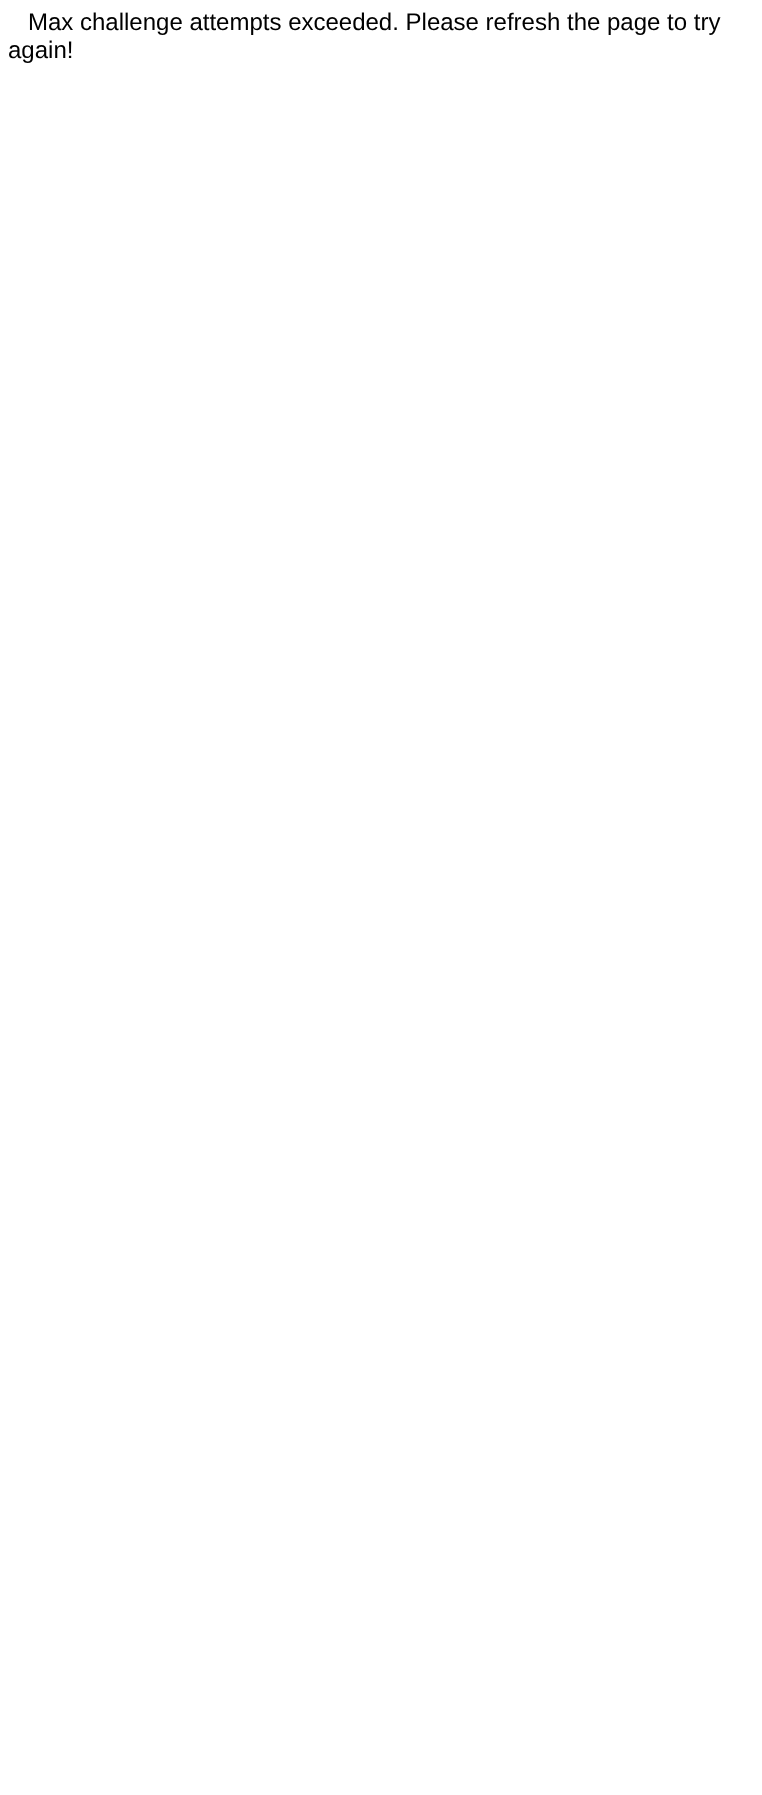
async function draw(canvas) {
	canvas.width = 762;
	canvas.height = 1795;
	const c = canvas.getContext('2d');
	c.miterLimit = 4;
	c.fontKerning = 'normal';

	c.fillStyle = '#fff';
	c.fillRect(0, 0, 762, 1795);
	c.font = '24px Liberation Sans';
	c.fillStyle = '#000';
	c.fillText('Max challenge attempts exceeded. Please refresh the page to try', 28, 30);
	c.fillText('again!', 8, 58);
}

draw(document.querySelector('canvas'));
